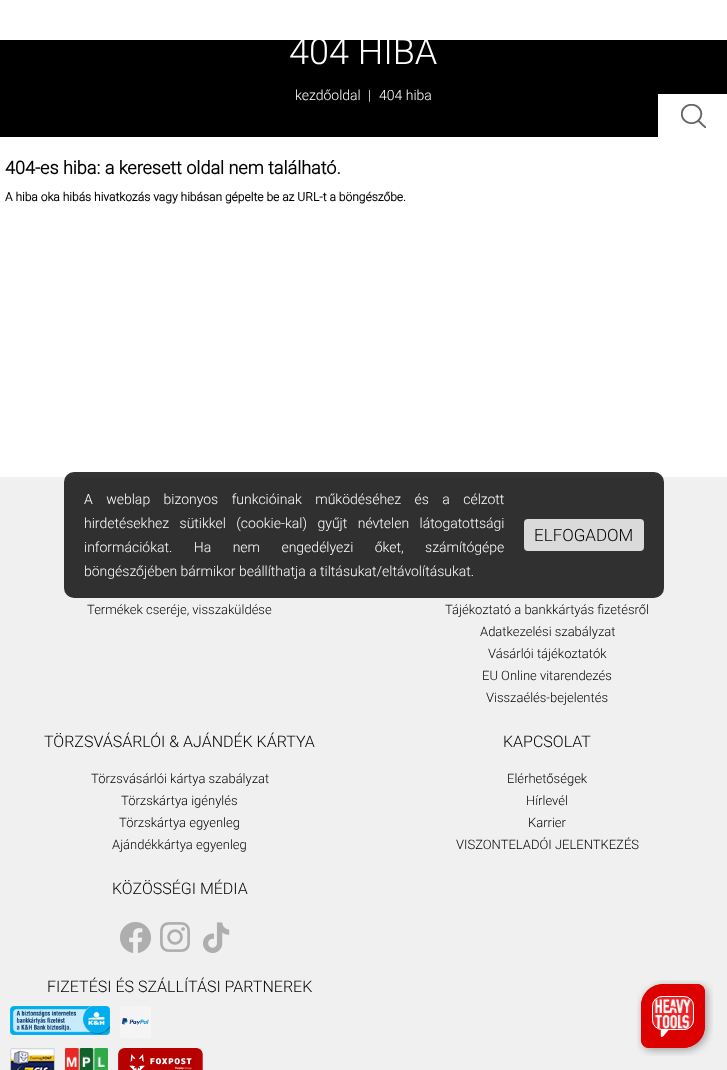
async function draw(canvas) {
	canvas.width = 727;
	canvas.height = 1070;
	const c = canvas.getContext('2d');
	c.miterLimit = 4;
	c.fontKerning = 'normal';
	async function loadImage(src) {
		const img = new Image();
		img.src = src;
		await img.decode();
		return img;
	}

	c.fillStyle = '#fff';
	c.fillRect(0, 0, 727, 1070);
	c.fillStyle = '#000';
	c.fillRect(0, 40, 727, 97);
	c.font = '300 36px Roboto';
	c.fillStyle = '#fff';
	c.fillText('404 HIBA', 289, 64);
	c.font = '300 14px Roboto';
	for (const [text, x, y] of [
		['kezdőoldal', 295, 100],
		['|', 368, 100],
		['404 hiba', 379, 100],
	]) {
		c.fillText(text, x, y);
	}
	c.fillRect(658, 94, 69, 43);
	c.drawImage(await loadImage('img1.png'), 681, 104, 25, 24);
	c.font = 'bold 18px Roboto';
	c.fillStyle = '#000';
	c.fillText('404-es hiba: a keresett oldal nem található.', 5, 174);
	c.font = 'bold 12px Roboto';
	c.fillText('A hiba oka hibás hivatkozás vagy hibásan gépelte be az URL-t a böngészőbe.', 5, 201);
	c.fillStyle = '#f0f0f0';
	c.fillRect(0, 477, 727, 593);
	c.fillStyle = '#000000cc';
	c.beginPath();
	c.roundRect(64, 472, 600, 126, 10);
	c.fill();
	c.wordSpacing = '10px';
	c.font = '300 14px Roboto';
	c.fillStyle = '#fff';
	c.fillText('A weblap bizonyos funkcióinak működéséhez és a célzott', 84, 504);
	c.wordSpacing = '7px';
	c.fillText('hirdetésekhez sütikkel (cookie-kal) gyűjt névtelen látogatottsági', 84, 528);
	c.wordSpacing = '18px';
	c.fillText('információkat. Ha nem engedélyezi őket, számítógépe', 84, 552);
	c.wordSpacing = '0px';
	c.fillText('böngészőjében bármikor beállíthatja a tiltásukat/eltávolításukat.', 84, 576);
	c.fillStyle = '#dadada';
	c.beginPath();
	c.roundRect(524, 519, 120, 32, 4);
	c.fill();
	c.font = '300 17px Roboto';
	c.fillStyle = '#000';
	c.fillText('ELFOGADOM', 534, 541);
	c.font = '300 13px Roboto';
	for (const [text, x, y] of [
		['Termékek cseréje, visszaküldése', 87, 614],
		['Tájékoztató a bankkártyás fizetésről', 445, 614],
		['Adatkezelési szabályzat', 480, 636],
		['Vásárlói tájékoztatók', 488, 658],
		['EU Online vitarendezés', 482, 680],
		['Visszaélés-bejelentés', 486, 702],
	]) {
		c.fillText(text, x, y);
	}
	c.font = '300 16px Roboto';
	c.fillText('TÖRZSVÁSÁRLÓI & AJÁNDÉK KÁRTYA', 44, 747);
	c.font = '300 13px Roboto';
	for (const [text, x, y] of [
		['Törzsvásárlói kártya szabályzat', 91, 783],
		['Törzskártya igénylés', 121, 805],
		['Törzskártya egyenleg', 119, 827],
		['Ajándékkártya egyenleg', 112, 849],
	]) {
		c.fillText(text, x, y);
	}
	c.font = '300 16px Roboto';
	c.fillText('KAPCSOLAT', 503, 747);
	c.font = '300 13px Roboto';
	for (const [text, x, y] of [
		['Elérhetőségek', 507, 783],
		['Hírlevél', 526, 805],
		['Karrier', 528, 827],
		['VISZONTELADÓI JELENTKEZÉS', 456, 849],
	]) {
		c.fillText(text, x, y);
	}
	c.font = '300 16px Roboto';
	c.fillText('KÖZÖSSÉGI MÉDIA', 112, 894);
	c.drawImage(await loadImage('img2.png'), 120, 922, 31, 31);
	c.drawImage(await loadImage('img3.png'), 160, 922, 30, 30);
	c.drawImage(await loadImage('img4.png'), 203, 922, 27, 31);
	c.fillText('FIZETÉSI ÉS SZÁLLÍTÁSI PARTNEREK', 47, 992);
	c.drawImage(await loadImage('img5.png'), 10, 1006, 100, 29);
	c.drawImage(await loadImage('img6.png'), 120, 1006, 31, 32);
	c.drawImage(await loadImage('img7.png'), 10, 1048, 45, 22);
	c.drawImage(await loadImage('img8.png'), 65, 1048, 43, 22);
	c.drawImage(await loadImage('img9.png'), 118, 1048, 85, 22);
	c.drawImage(await loadImage('img10.png'), 637, 980, 76, 76);
}

draw(document.querySelector('canvas'));
